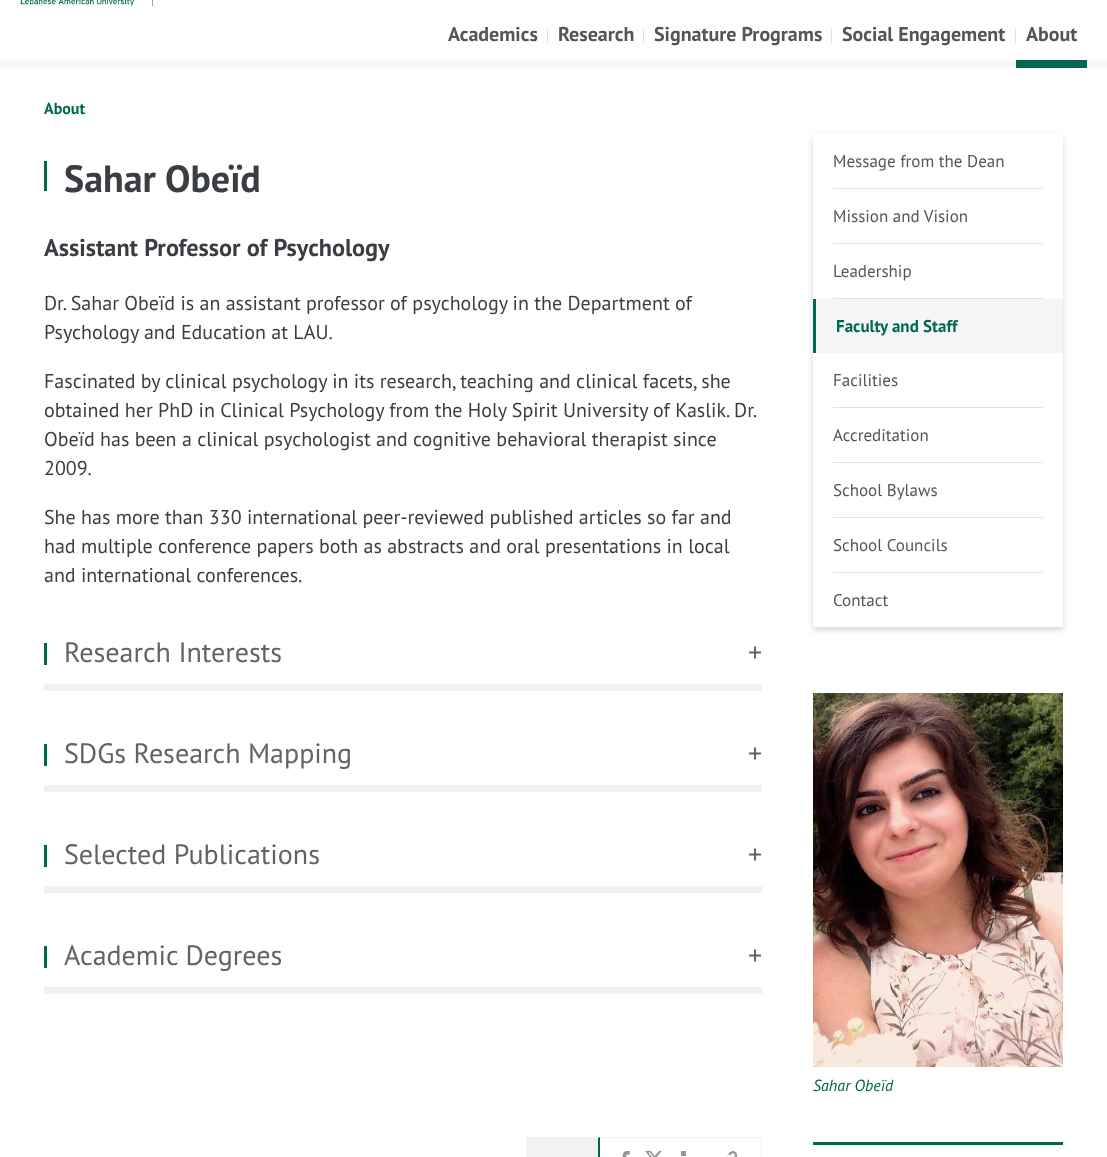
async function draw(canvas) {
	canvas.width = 1107;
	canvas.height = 1157;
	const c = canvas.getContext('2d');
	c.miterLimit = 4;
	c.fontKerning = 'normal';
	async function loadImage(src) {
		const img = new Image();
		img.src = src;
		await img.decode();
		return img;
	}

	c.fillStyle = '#fff';
	c.fillRect(0, 0, 1107, 1157);
	c.fillStyle = '#f8f8f8';
	c.fillRect(0, 60, 1107, 8);
	c.drawImage(await loadImage('img1.png'), 20, 0, 115, 6);
	c.fillStyle = '#9b9ba1';
	c.fillRect(152, 0, 1, 6);
	c.font = 'bold 20px PT Sans';
	c.fillStyle = '#555';
	c.fillText('Academics', 448, 41);
	c.fillStyle = '#e2e2e2';
	c.fillRect(547, 28, 1, 16);
	c.fillStyle = '#555';
	c.fillText('Research', 558, 41);
	c.fillStyle = '#e2e2e2';
	c.fillRect(643, 28, 1, 16);
	c.fillStyle = '#555';
	c.fillText('Signature Programs', 654, 41);
	c.fillStyle = '#e2e2e2';
	c.fillRect(831, 28, 1, 16);
	c.fillStyle = '#555';
	c.fillText('Social Engagement', 842, 41);
	c.fillStyle = '#e2e2e2';
	c.fillRect(1015, 28, 1, 16);
	c.fillStyle = '#555';
	c.fillText('About', 1026, 41);
	c.fillStyle = '#006751';
	c.fillRect(1016, 60, 71, 8);
	c.font = 'bold 16px PT Sans';
	c.fillText('About', 44, 114);
	c.fillRect(44, 161, 3, 30);
	c.font = 'bold 38px PT Sans';
	c.fillStyle = '#3a3e42';
	c.fillText('Sahar Obeïd', 64, 192);
	c.font = 'bold 24.25px PT Sans';
	c.fillText('Assistant Professor of Psychology', 44, 256);
	c.font = '20px PT Sans';
	for (const [text, x, y] of [
		['Dr. Sahar Obeïd is an assistant professor of psychology in the Department of', 44, 310],
		['Psychology and Education at LAU.', 44, 339],
		['Fascinated by clinical psychology in its research, teaching and clinical facets, she', 44, 388],
		['obtained her PhD in Clinical Psychology from the Holy Spirit University of Kaslik. Dr.', 44, 417],
		['Obeïd has been a clinical psychologist and cognitive behavioral therapist since', 44, 446],
		['2009.', 44, 475],
		['She has more than 330 international peer-reviewed published articles so far and', 44, 524],
		['had multiple conference papers both as abstracts and oral presentations in local', 44, 553],
		['and international conferences.', 44, 582],
	]) {
		c.fillText(text, x, y);
	}
	c.fillStyle = '#f1f1f1';
	c.fillRect(44, 684, 718, 7);
	c.fillStyle = '#006751';
	c.fillRect(44, 643, 3, 22);
	c.font = '28px PT Sans';
	c.fillStyle = '#636363';
	c.fillText('Research Interests', 64, 662);
	c.fillText('+', 748, 662);
	c.fillStyle = '#f1f1f1';
	c.fillRect(44, 785, 718, 7);
	c.fillStyle = '#006751';
	c.fillRect(44, 744, 3, 22);
	c.fillStyle = '#636363';
	c.fillText('SDGs Research Mapping', 64, 763);
	c.fillText('+', 748, 763);
	c.fillStyle = '#f1f1f1';
	c.fillRect(44, 886, 718, 7);
	c.fillStyle = '#006751';
	c.fillRect(44, 845, 3, 22);
	c.fillStyle = '#636363';
	c.fillText('Selected Publications', 64, 864);
	c.fillText('+', 748, 864);
	c.fillStyle = '#f1f1f1';
	c.fillRect(44, 987, 718, 7);
	c.fillStyle = '#006751';
	c.fillRect(44, 946, 3, 22);
	c.fillStyle = '#636363';
	c.fillText('Academic Degrees', 64, 965);
	c.fillText('+', 748, 965);
	c.fillStyle = '#f1f2f2';
	c.fillRect(527, 1138, 71, 19);
	c.beginPath();
	c.moveTo(526, 1137);
	c.lineTo(600, 1137);
	c.lineTo(598, 1138);
	c.lineTo(527, 1138);
	c.closePath();
	c.fill();
	c.fillStyle = '#006751';
	c.beginPath();
	c.moveTo(600, 1137);
	c.lineTo(600, 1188);
	c.lineTo(598, 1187);
	c.lineTo(598, 1138);
	c.closePath();
	c.fill();
	for (const [x, y, w, h, color] of [
		[526, 1137, 1, 20, '#f1f2f2'],
		[600, 1137, 162, 1, '#f1f2f2'],
		[761, 1137, 1, 20, '#f1f2f2'],
	]) {
		c.fillStyle = color;
		c.fillRect(x, y, w, h);
	}
	c.drawImage(await loadImage('img2.png'), 622, 1151, 8, 6);
	c.drawImage(await loadImage('img3.png'), 645, 1150, 17, 7);
	c.fillStyle = '#959595';
	c.fillRect(681, 1151, 5, 5);
	c.drawImage(await loadImage('img4.png'), 726, 1151, 11, 6);
	c.save();
	c.beginPath();
	c.moveTo(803, 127);
	c.lineTo(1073, 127);
	c.lineTo(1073, 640);
	c.lineTo(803, 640);
	c.closePath();
	c.moveTo(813, 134);
	c.lineTo(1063, 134);
	c.lineTo(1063, 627);
	c.lineTo(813, 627);
	c.closePath();
	c.clip('evenodd');
	c.fillStyle = '#00000029';
	c.filter = 'blur(3px)';
	c.beginPath();
	c.rect(813, 137, 250, 493);
	c.fill();
	c.filter = 'none';
	c.restore();
	c.fillStyle = '#e3e3e3';
	c.fillRect(833, 188, 210, 1);
	c.font = '17px PT Sans';
	c.fillStyle = '#555';
	c.fillText('Message from the Dean', 833, 167);
	c.fillStyle = '#e3e3e3';
	c.fillRect(833, 243, 210, 1);
	c.fillStyle = '#555';
	c.fillText('Mission and Vision', 833, 222);
	c.fillStyle = '#e3e3e3';
	c.fillRect(833, 298, 210, 1);
	c.fillStyle = '#555';
	c.fillText('Leadership', 833, 277);
	c.fillStyle = '#f5f5f5';
	c.fillRect(816, 299, 247, 54);
	c.fillStyle = '#006751';
	c.fillRect(813, 299, 3, 54);
	c.font = 'bold 17px PT Sans';
	c.fillText('Faculty and Staff', 836, 332);
	c.fillStyle = '#e3e3e3';
	c.fillRect(833, 407, 210, 1);
	c.font = '17px PT Sans';
	c.fillStyle = '#555';
	c.fillText('Facilities', 833, 386);
	c.fillStyle = '#e3e3e3';
	c.fillRect(833, 462, 210, 1);
	c.fillStyle = '#555';
	c.fillText('Accreditation', 833, 441);
	c.fillStyle = '#e3e3e3';
	c.fillRect(833, 517, 210, 1);
	c.fillStyle = '#555';
	c.fillText('School Bylaws', 833, 496);
	c.fillStyle = '#e3e3e3';
	c.fillRect(833, 572, 210, 1);
	c.fillStyle = '#555';
	c.fillText('School Councils', 833, 551);
	c.fillText('Contact', 833, 606);
	c.drawImage(await loadImage('img5.png'), 813, 693, 250, 374);
	c.font = 'italic 16px PT Sans';
	c.fillStyle = '#00614b';
	c.fillText('Sahar Obeïd', 813, 1091);
	c.fillStyle = '#006751';
	c.fillRect(813, 1142, 250, 3);
}

draw(document.querySelector('canvas'));
